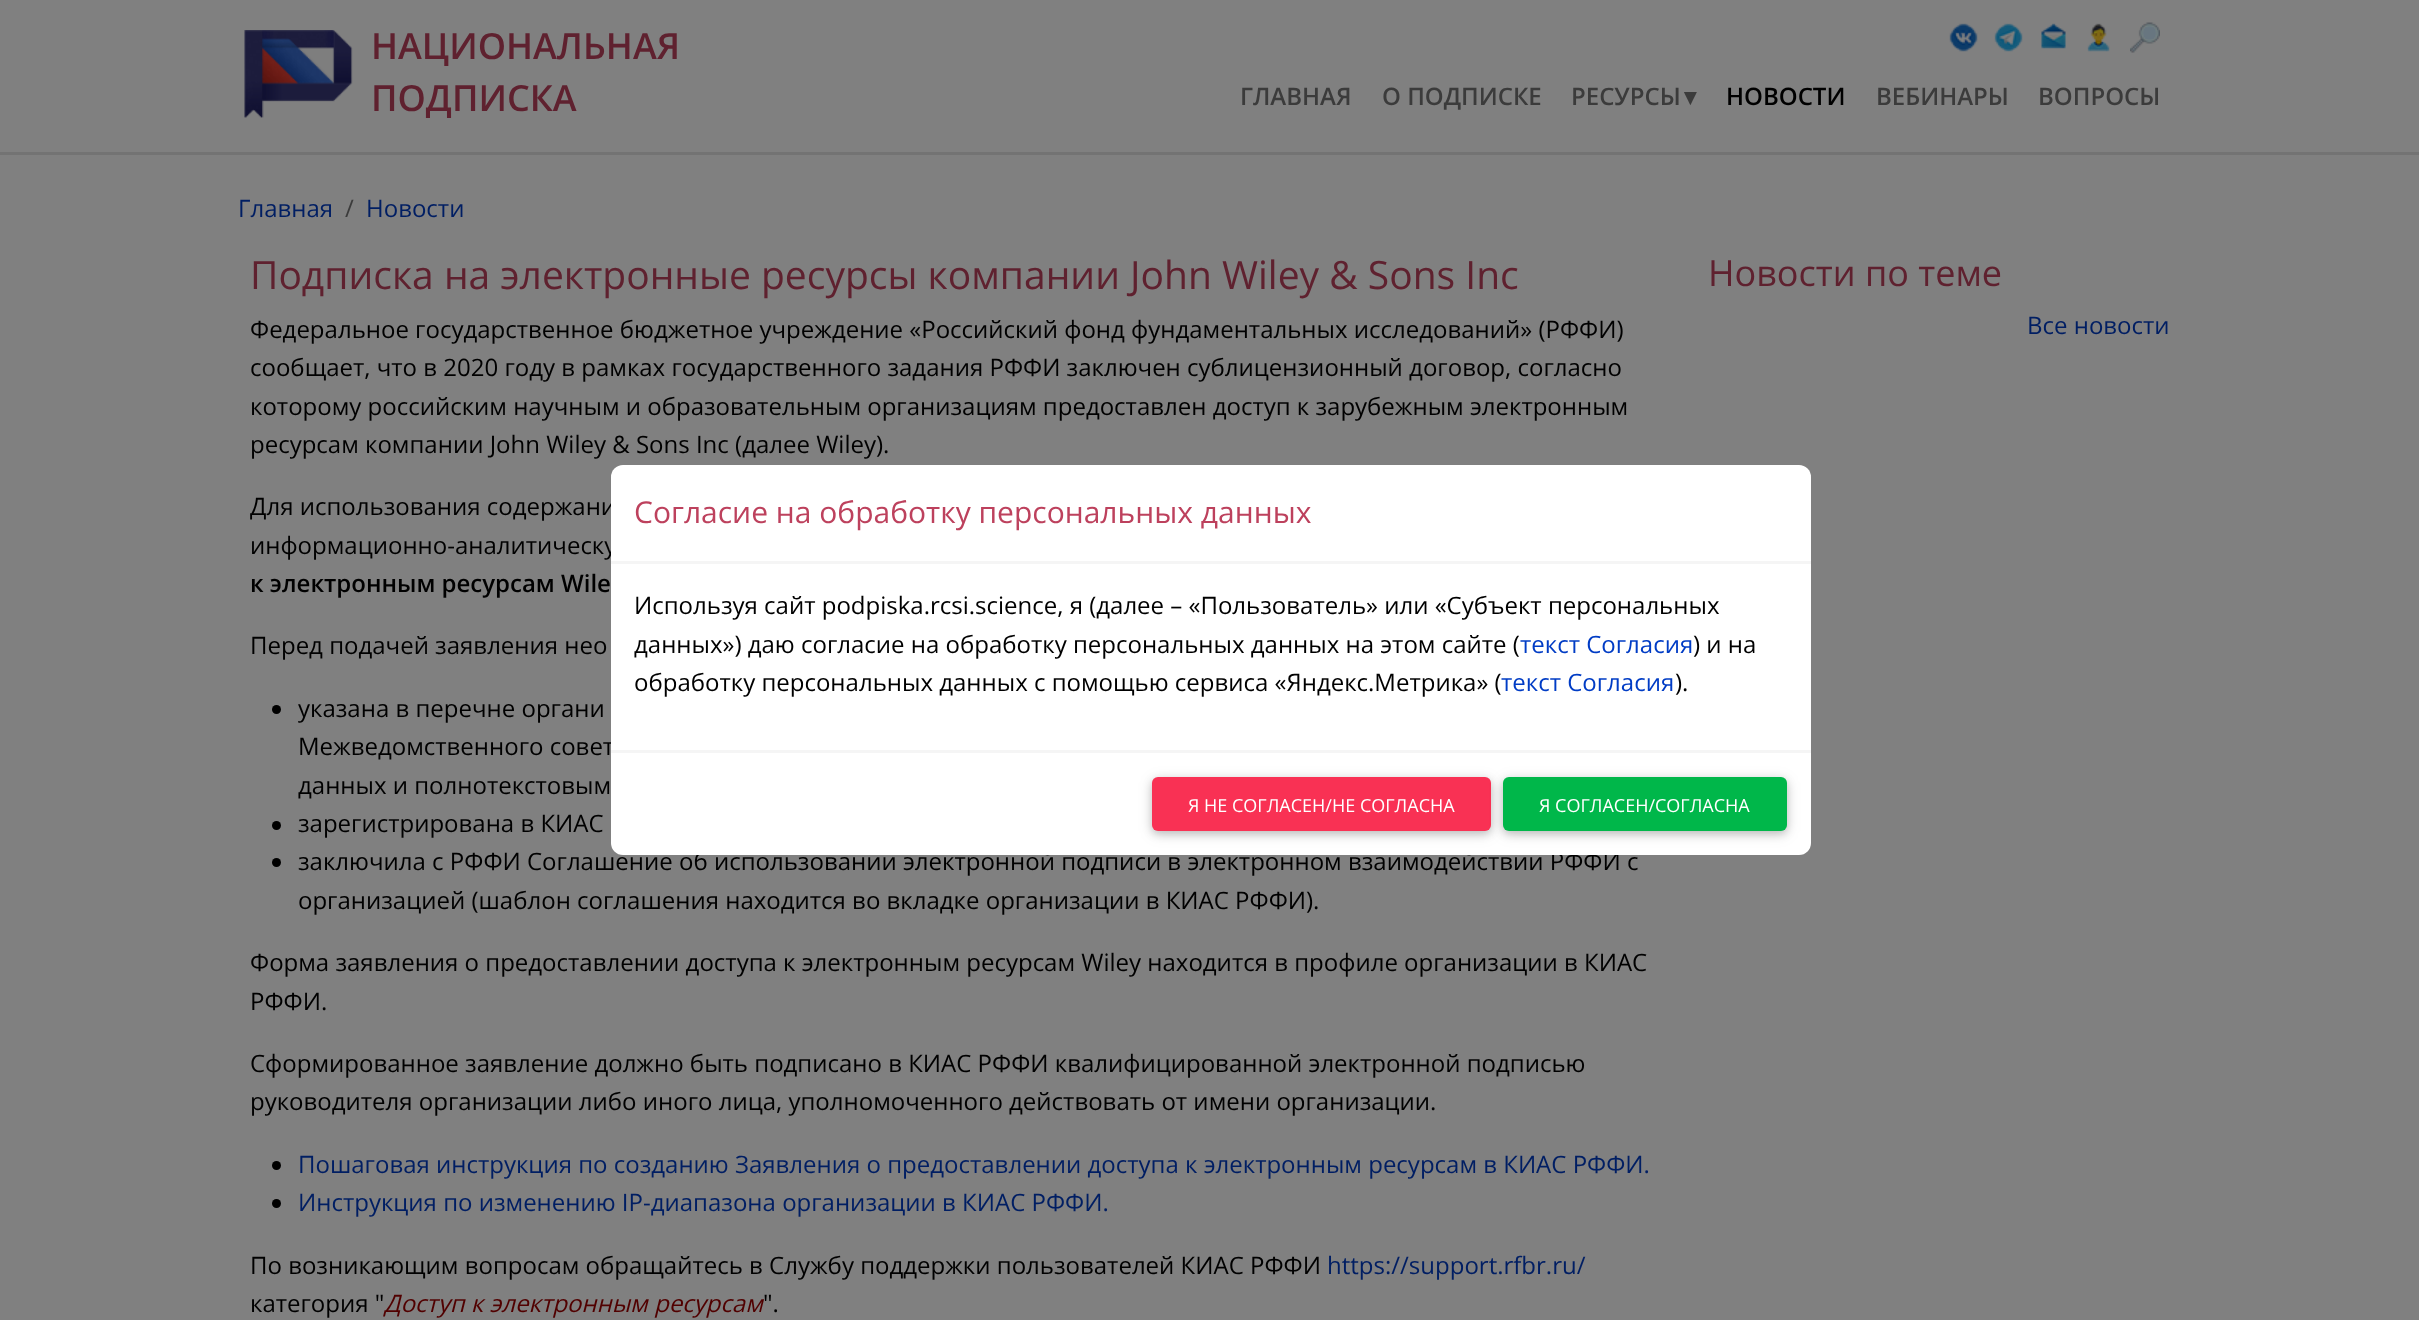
async function draw(canvas) {
	canvas.width = 2419;
	canvas.height = 1320;
	const c = canvas.getContext('2d');
	c.miterLimit = 4;
	c.fontKerning = 'normal';
	async function loadImage(src) {
		const img = new Image();
		img.src = src;
		await img.decode();
		return img;
	}

	c.fillStyle = '#808080';
	c.fillRect(0, 0, 2419, 1320);
	c.fillStyle = '#737373';
	c.fillRect(0, 152, 2419, 3);
	c.drawImage(await loadImage('img1.png'), 244, 30, 109, 88);
	c.font = '600 36px Open Sans';
	c.fillStyle = '#5f212f';
	c.fillText('НАЦИОНАЛЬНАЯ', 371, 59);
	c.fillText('ПОДПИСКА', 371, 111);
	c.drawImage(await loadImage('img2.png'), 1949, 23, 29, 29);
	c.drawImage(await loadImage('img3.png'), 1994, 23, 29, 29);
	c.drawImage(await loadImage('img4.png'), 2041, 23, 25, 26);
	c.drawImage(await loadImage('img5.png'), 2087, 23, 23, 29);
	c.drawImage(await loadImage('img6.png'), 2130, 22, 30, 31);
	c.font = '600 24px Open Sans';
	c.fillStyle = '#3b3b3b';
	for (const [text, x, y] of [
		['ГЛАВНАЯ', 1240, 105],
		['О ПОДПИСКЕ', 1382, 105],
		['РЕСУРСЫ', 1571, 105],
	]) {
		c.fillText(text, x, y);
	}
	c.font = 'bold 24px DejaVu Sans';
	c.fillText('▾', 1684, 105);
	c.font = '600 24px Open Sans';
	c.fillStyle = '#000';
	c.fillText('НОВОСТИ', 1726, 105);
	c.fillStyle = '#3b3b3b';
	c.fillText('ВЕБИНАРЫ', 1876, 105);
	c.fillText('ВОПРОСЫ', 2038, 105);
	c.font = '24px Open Sans';
	c.fillStyle = '#001e63';
	c.fillText('Главная', 238, 217);
	c.fillStyle = '#3b3b3b';
	c.fillText('/', 345, 217);
	c.fillStyle = '#001e63';
	c.fillText('Новости', 366, 217);
	c.font = '39px Open Sans';
	c.fillStyle = '#5f212f';
	c.fillText('Подписка на электронные ресурсы компании John Wiley & Sons Inc', 250, 289);
	c.font = '24px Open Sans';
	c.fillStyle = '#000';
	for (const [text, x, y] of [
		['Федеральное государственное бюджетное учреждение «Российский фонд фундаментальных исследований» (РФФИ)', 250, 338],
		['сообщает, что в 2020 году в рамках государственного задания РФФИ заключен сублицензионный договор, согласно', 250, 376],
		['которому российским научным и образовательным организациям предоставлен доступ к зарубежным электронным', 250, 415],
		['ресурсам компании John Wiley & Sons Inc (далее Wiley).', 250, 453],
		['Для использования содержани', 250, 515],
		['информационно-аналитическу', 250, 554],
	]) {
		c.fillText(text, x, y);
	}
	c.font = '600 24px Open Sans';
	c.fillText('к электронным ресурсам Wile', 250, 592);
	c.font = '24px Open Sans';
	c.fillText('Перед подачей заявления нео', 250, 654);
	c.beginPath();
	c.arc(276.5, 709.5, 4.5, 0, 2 * Math.PI);
	c.fill();
	for (const [text, x, y] of [
		['указана в перечне органи', 298, 717],
		['Межведомственного совет', 298, 755],
		['данных и полнотекстовым', 298, 794],
	]) {
		c.fillText(text, x, y);
	}
	c.beginPath();
	c.arc(276.5, 825.5, 4.5, 0, 2 * Math.PI);
	c.fill();
	c.fillText('зарегистрирована в КИАС', 298, 832);
	c.beginPath();
	c.arc(276.5, 862.5, 4.5, 0, 2 * Math.PI);
	c.fill();
	for (const [text, x, y] of [
		['заключила с РФФИ Соглашение об использовании электронной подписи в электронном взаимодействии РФФИ с', 298, 870],
		['организацией (шаблон соглашения находится во вкладке организации в КИАС РФФИ).', 298, 909],
		['Форма заявления о предоставлении доступа к электронным ресурсам Wiley находится в профиле организации в КИАС', 250, 971],
		['РФФИ.', 250, 1010],
		['Сформированное заявление должно быть подписано в КИАС РФФИ квалифицированной электронной подписью', 250, 1072],
		['руководителя организации либо иного лица, уполномоченного действовать от имени организации.', 250, 1110],
	]) {
		c.fillText(text, x, y);
	}
	c.beginPath();
	c.arc(276.5, 1165.5, 4.5, 0, 2 * Math.PI);
	c.fill();
	c.fillStyle = '#001e63';
	c.fillText('Пошаговая инструкция по созданию Заявления о предоставлении доступа к электронным ресурсам в КИАС РФФИ.', 298, 1173);
	c.fillStyle = '#000';
	c.beginPath();
	c.arc(276.5, 1203.5, 4.5, 0, 2 * Math.PI);
	c.fill();
	c.fillStyle = '#001e63';
	c.fillText('Инструкция по изменению IP-диапазона организации в КИАС РФФИ.', 298, 1211);
	c.fillStyle = '#000';
	c.fillText('По возникающим вопросам обращайтесь в Службу поддержки пользователей КИАС РФФИ', 250, 1274);
	c.fillStyle = '#001e63';
	c.fillText('https://support.rfbr.ru/', 1327, 1274);
	c.fillStyle = '#000';
	c.fillText('категория "', 250, 1312);
	c.font = 'italic 24px Open Sans';
	c.fillStyle = '#510000';
	c.fillText('Доступ к электронным ресурсам', 384, 1312);
	c.font = '24px Open Sans';
	c.fillStyle = '#000';
	c.fillText('".', 763, 1312);
	c.font = '36px Open Sans';
	c.fillStyle = '#5f212f';
	c.fillText('Новости по теме', 1708, 286);
	c.font = '24px Open Sans';
	c.fillStyle = '#001e63';
	c.fillText('Все новости', 2027, 334);
	c.fillStyle = '#fff';
	c.beginPath();
	c.roundRect(611, 465, 1200, 390, 12);
	c.fill();
	c.fillStyle = '#f5f5f5';
	c.fillRect(611, 561, 1200, 3);
	c.font = '30px Open Sans';
	c.fillStyle = '#bd415d';
	c.fillText('Согласие на обработку персональных данных', 634, 523);
	c.font = '24px Open Sans';
	c.fillStyle = '#000';
	c.fillText('Используя сайт podpiska.rcsi.science, я (далее – «Пользователь» или «Субъект персональных', 634, 614);
	c.fillText('данных») даю согласие на обработку персональных данных на этом сайте (', 634, 653);
	c.fillStyle = '#003cc5';
	c.fillText('текст Согласия', 1520, 653);
	c.fillStyle = '#000';
	c.fillText(') и на', 1693, 653);
	c.fillText('обработку персональных данных с помощью сервиса «Яндекс.Метрика» (', 634, 691);
	c.fillStyle = '#003cc5';
	c.fillText('текст Согласия', 1501, 691);
	c.fillStyle = '#000';
	c.fillText(').', 1675, 691);
	c.fillStyle = '#f5f5f5';
	c.fillRect(611, 750, 1200, 3);
	c.fillStyle = '#0000001a';
	c.filter = 'blur(7.5px)';
	c.beginPath();
	c.roundRect(1152, 780, 339, 54, 6);
	c.fill();
	c.filter = 'none';
	c.fillStyle = '#00000033';
	c.filter = 'blur(4px)';
	c.beginPath();
	c.roundRect(1152, 780, 339, 54, 6);
	c.fill();
	c.filter = 'none';
	c.fillStyle = '#f93154';
	c.beginPath();
	c.roundRect(1152, 777, 339, 54, 6);
	c.fill();
	c.font = '18px Open Sans';
	c.fillStyle = '#fff';
	c.fillText('Я НЕ СОГЛАСЕН/НЕ СОГЛАСНА', 1188, 812);
	c.fillStyle = '#0000001a';
	c.filter = 'blur(7.5px)';
	c.beginPath();
	c.roundRect(1503, 780, 284, 54, 6);
	c.fill();
	c.filter = 'none';
	c.fillStyle = '#00000033';
	c.filter = 'blur(4px)';
	c.beginPath();
	c.roundRect(1503, 780, 284, 54, 6);
	c.fill();
	c.filter = 'none';
	c.fillStyle = '#00b74a';
	c.beginPath();
	c.roundRect(1503, 777, 284, 54, 6);
	c.fill();
	c.fillStyle = '#fff';
	c.fillText('Я СОГЛАСЕН/СОГЛАСНА', 1539, 812);
}

draw(document.querySelector('canvas'));
